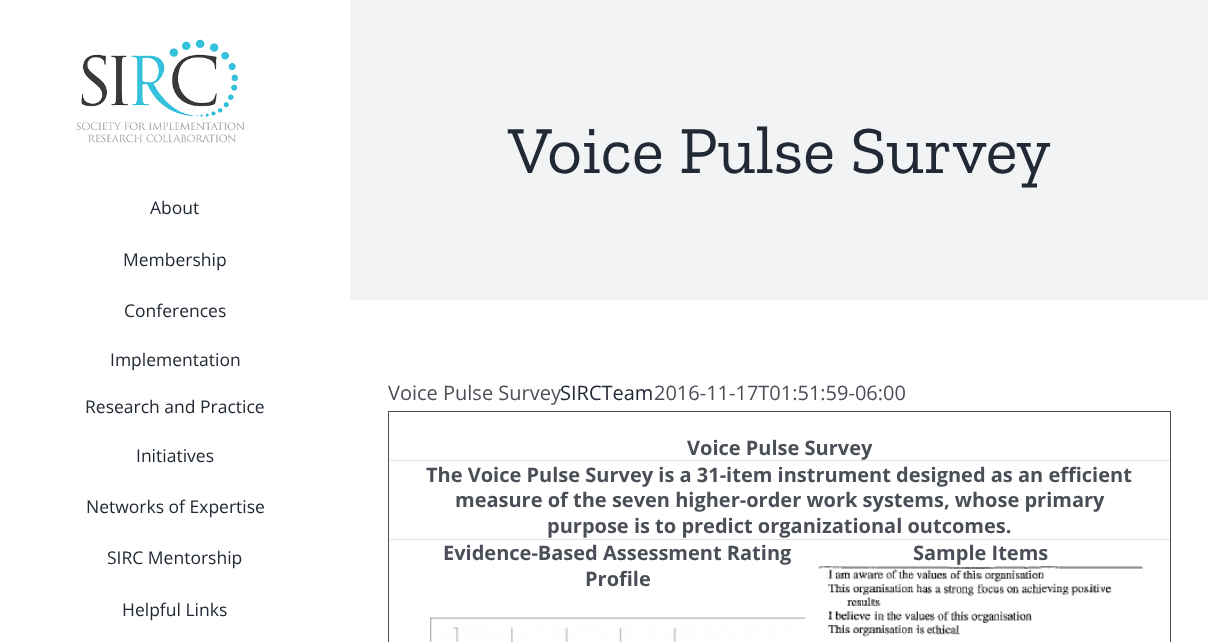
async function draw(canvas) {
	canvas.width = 1208;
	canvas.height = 642;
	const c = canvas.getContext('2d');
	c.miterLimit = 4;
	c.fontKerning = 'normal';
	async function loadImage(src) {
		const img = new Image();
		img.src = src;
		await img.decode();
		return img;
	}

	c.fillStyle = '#fff';
	c.fillRect(0, 0, 1208, 642);
	c.fillStyle = '#f2f3f5';
	c.fillRect(350, 0, 858, 300);
	c.font = '67.5px Zilla Slab';
	c.fillStyle = '#212934';
	c.fillText('Voice Pulse Survey', 508, 173);
	c.drawImage(await loadImage('img1.png'), 76, 39, 169, 104);
	c.font = '17.5px Open Sans';
	for (const [text, x, y] of [
		['About', 150, 214],
		['Membership', 123, 266],
		['Conferences', 124, 317],
		['Implementation', 110, 366],
		['Research and Practice', 85, 413],
		['Initiatives', 136, 462],
		['Networks of Expertise', 86, 513],
		['SIRC Mentorship', 107, 564],
		['Helpful Links', 122, 616],
	]) {
		c.fillText(text, x, y);
	}
	c.font = '20px Open Sans';
	c.fillStyle = '#4a4e57';
	c.fillText('Voice Pulse Survey', 388, 400);
	c.fillStyle = '#212934';
	c.fillText('SIRCTeam', 560, 400);
	c.fillStyle = '#4a4e57';
	c.fillText('2016-11-17T01:51:59-06:00', 654, 400);
	for (const [x, y, w, h, color] of [
		[388, 411, 783, 1, '#4a4e57'],
		[1170, 411, 1, 231, '#4a4e57'],
		[388, 411, 1, 231, '#4a4e57'],
	]) {
		c.fillStyle = color;
		c.fillRect(x, y, w, h);
	}
	c.font = 'bold 20px Open Sans';
	c.fillText('Voice Pulse Survey', 687, 455);
	c.fillStyle = '#e2e2e2';
	c.fillRect(389, 460, 781, 1);
	c.fillStyle = '#4a4e57';
	for (const [text, x, y] of [
		['The Voice Pulse Survey is a 31-item instrument designed as an efficient', 426, 482],
		['measure of the seven higher-order work systems, whose primary', 455, 507],
		['purpose is to predict organizational outcomes.', 547, 533],
		['Evidence-Based Assessment Rating', 443, 560],
		['Profile', 585, 586],
	]) {
		c.fillText(text, x, y);
	}
	c.drawImage(await loadImage('img2.png'), 430, 617, 375, 25);
	c.fillStyle = '#e2e2e2';
	c.fillRect(389, 539, 781, 1);
	c.fillStyle = '#4a4e57';
	c.fillText('Sample Items', 913, 560);
	c.drawImage(await loadImage('img3.png'), 818, 566, 325, 71);
}

draw(document.querySelector('canvas'));
